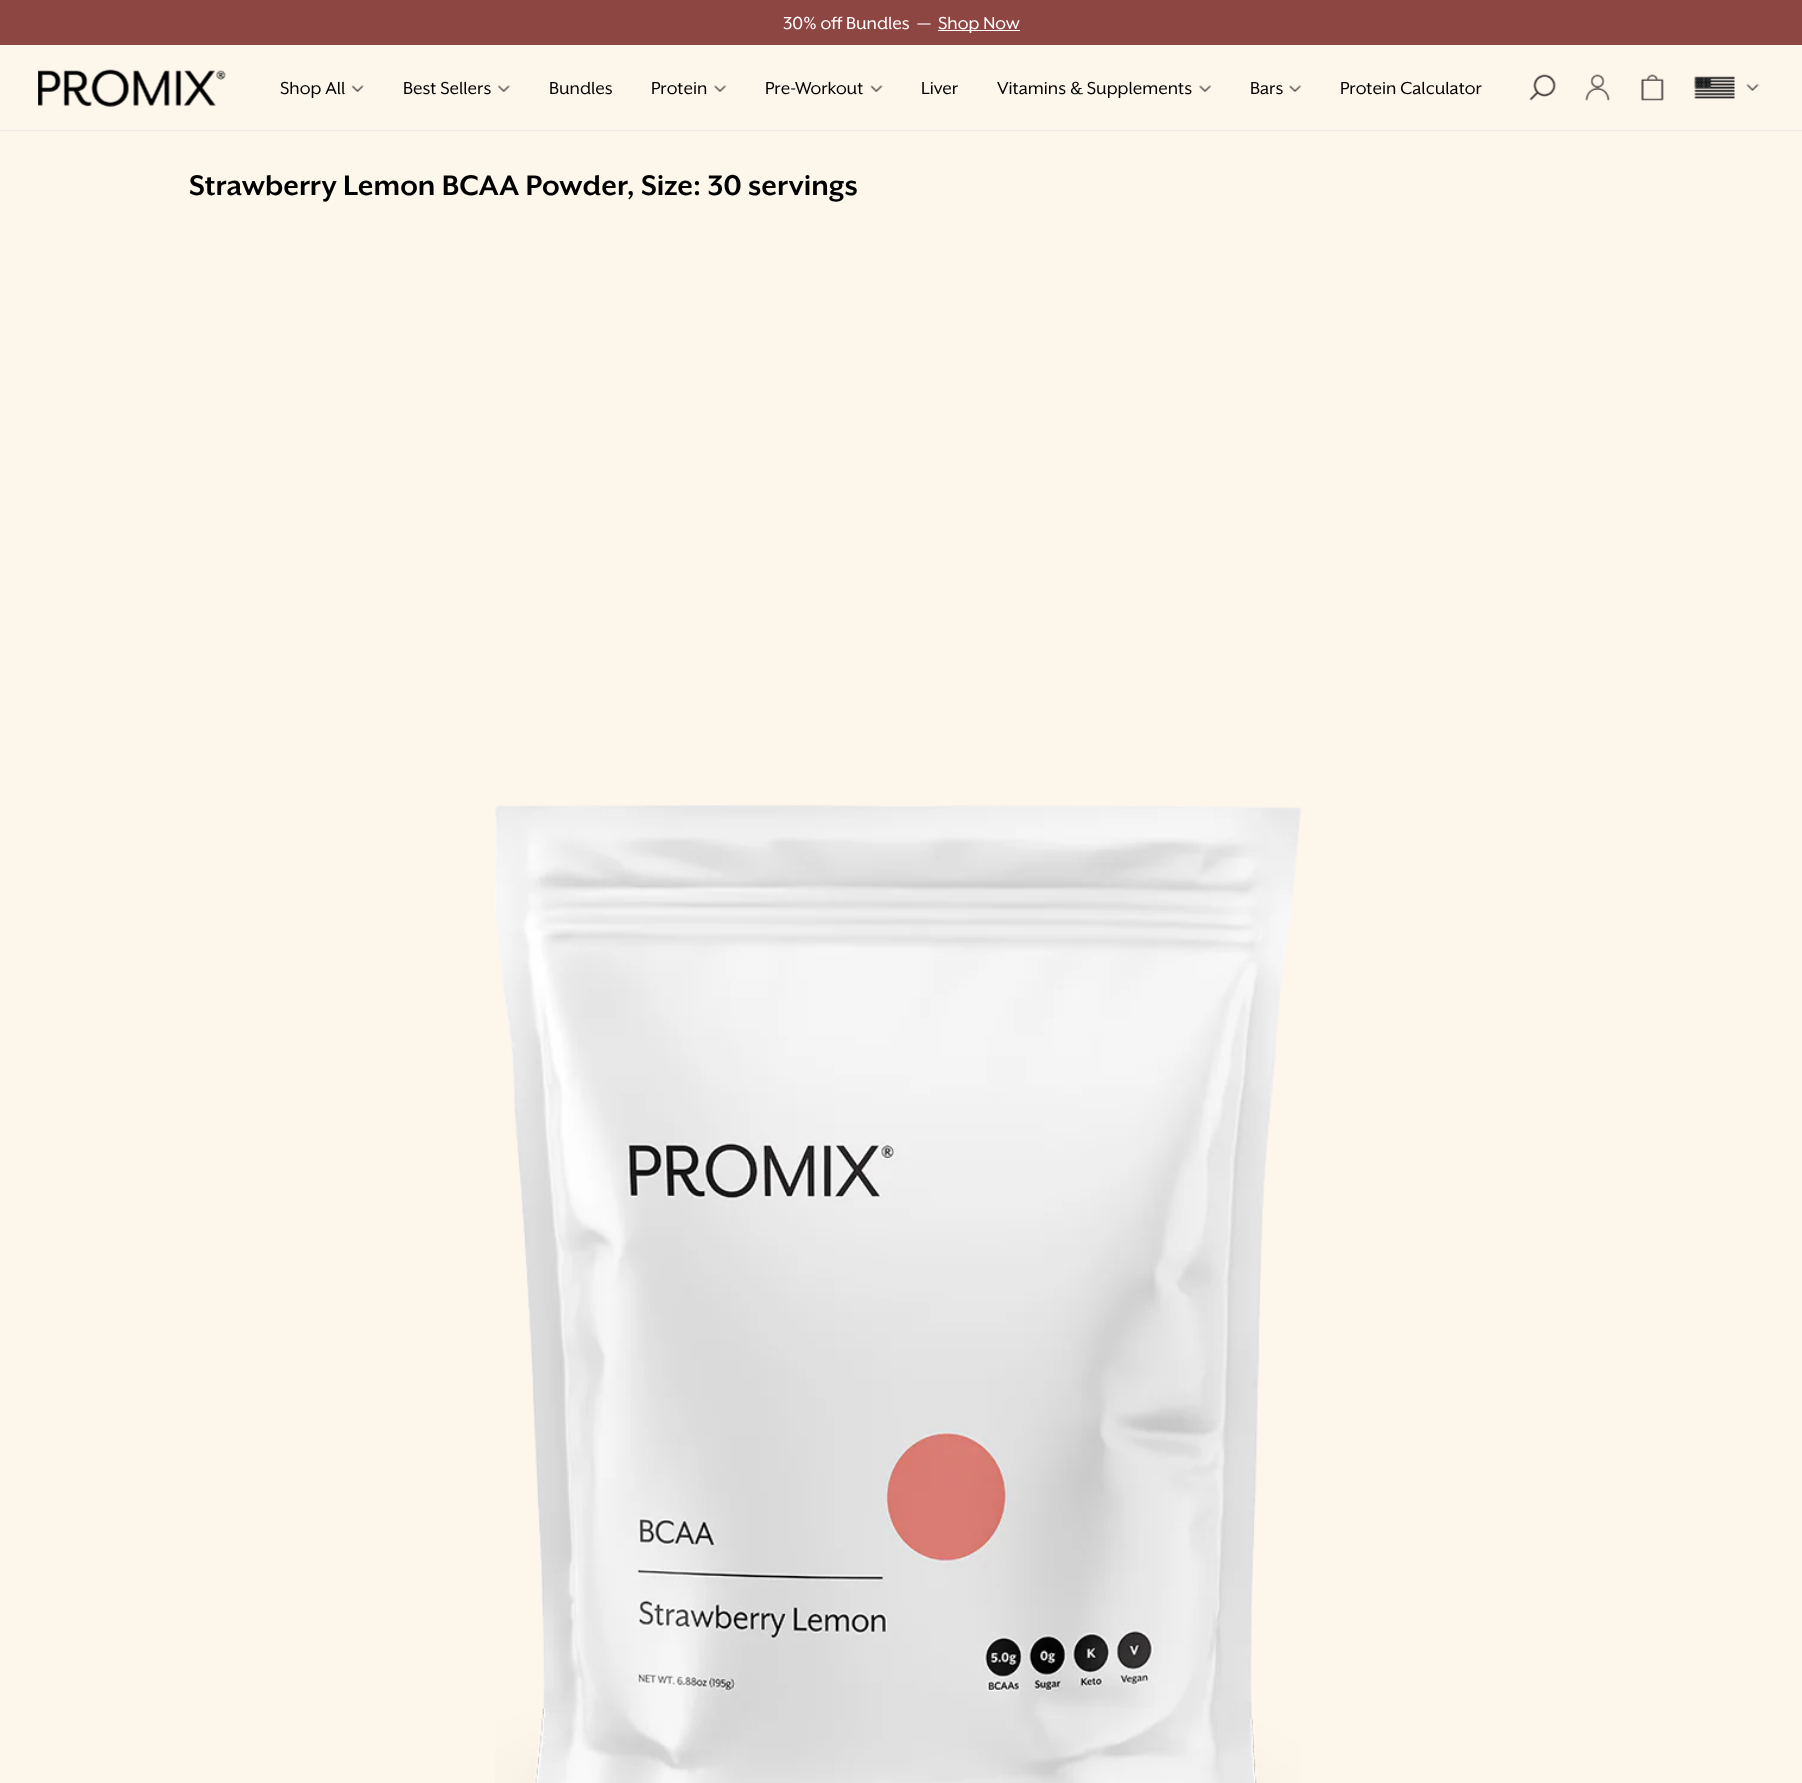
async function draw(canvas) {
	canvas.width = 1802;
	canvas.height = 1783;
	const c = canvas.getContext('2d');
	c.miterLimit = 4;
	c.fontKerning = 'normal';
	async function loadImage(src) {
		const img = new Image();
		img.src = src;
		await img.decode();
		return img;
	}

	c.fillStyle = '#fdf6eb';
	c.fillRect(0, 0, 1802, 1783);
	c.fillStyle = '#8e4642';
	c.fillRect(0, 0, 1802, 45);
	c.font = '20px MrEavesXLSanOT';
	c.fillStyle = '#fff';
	c.fillText('30% off Bundles  —', 783, 29);
	c.fillRect(938, 30, 82, 1);
	c.fillText('Shop Now', 938, 29);
	c.fillStyle = '#ececec';
	c.fillRect(0, 130, 1802, 1);
	c.drawImage(await loadImage('img1.png'), 38, 69, 188, 38);
	c.fillStyle = '#000';
	c.fillText('Shop All', 280, 94);
	c.drawImage(await loadImage('img2.png'), 351, 85, 13, 7);
	c.fillText('Best Sellers', 403, 94);
	c.drawImage(await loadImage('img3.png'), 497, 85, 14, 7);
	c.fillText('Bundles', 549, 94);
	c.fillText('Protein', 651, 94);
	c.drawImage(await loadImage('img4.png'), 714, 85, 13, 7);
	c.fillText('Pre-Workout', 765, 94);
	c.drawImage(await loadImage('img5.png'), 870, 85, 13, 7);
	c.fillText('Liver', 921, 94);
	c.fillText('Vitamins & Supplements', 997, 94);
	c.drawImage(await loadImage('img4.png'), 1199, 85, 13, 7);
	c.fillText('Bars', 1250, 94);
	c.drawImage(await loadImage('img4.png'), 1289, 85, 13, 7);
	c.fillText('Protein Calculator', 1340, 94);
	c.drawImage(await loadImage('img6.png'), 1529, 74, 27, 27);
	c.drawImage(await loadImage('img7.png'), 1585, 74, 25, 27);
	c.drawImage(await loadImage('img8.png'), 1641, 74, 23, 27);
	c.drawImage(await loadImage('img9.png'), 1694, 76, 41, 23);
	c.drawImage(await loadImage('img10.png'), 1746, 83, 14, 8);
	c.font = 'bold 32.5px MrEavesXLSanOT';
	c.fillText('Strawberry Lemon BCAA Powder, Size: 30 servings', 189, 195);
	c.drawImage(await loadImage('img11.png'), 495, 805, 807, 978);
}

draw(document.querySelector('canvas'));
